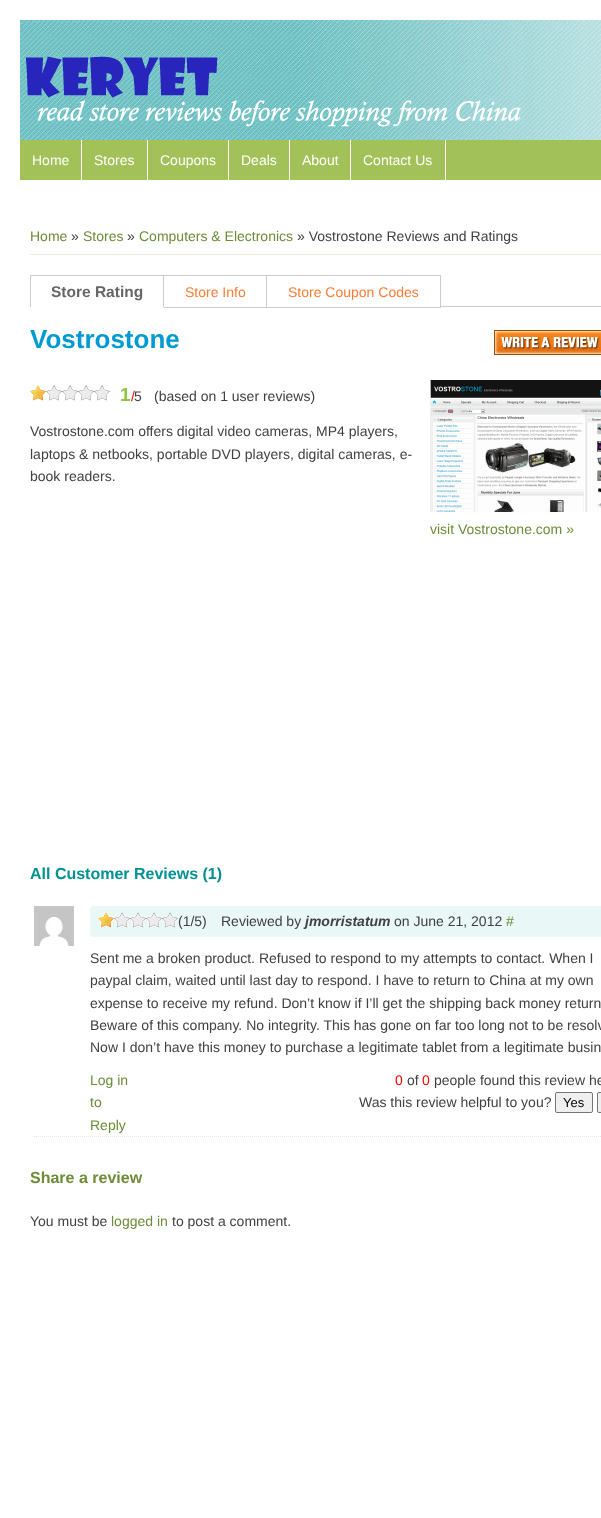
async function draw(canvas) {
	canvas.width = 601;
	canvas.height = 1518;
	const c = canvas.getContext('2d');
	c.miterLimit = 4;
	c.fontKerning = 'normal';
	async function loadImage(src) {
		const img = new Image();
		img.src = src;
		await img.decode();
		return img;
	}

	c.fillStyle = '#fff';
	c.fillRect(0, 0, 601, 1518);
	c.drawImage(await loadImage('img1.png'), 20, 20, 581, 120);
	c.drawImage(await loadImage('img2.png'), 26, 56, 495, 71);
	c.fillStyle = '#a3c159';
	c.fillRect(20, 140, 581, 40);
	c.fillStyle = '#fff';
	c.fillRect(81, 140, 1, 40);
	c.font = '14px Liberation Sans';
	c.fillText('Home', 32, 165);
	c.fillRect(147, 140, 1, 40);
	c.fillText('Stores', 94, 165);
	c.fillRect(228, 140, 1, 40);
	c.fillText('Coupons', 160, 165);
	c.fillRect(289, 140, 1, 40);
	c.fillText('Deals', 241, 165);
	c.fillRect(350, 140, 1, 40);
	c.fillText('About', 302, 165);
	c.fillRect(445, 140, 1, 40);
	c.fillText('Contact Us', 363, 165);
	c.fillStyle = '#ede8e2';
	c.fillRect(30, 254, 571, 1);
	c.fillStyle = '#6c8c37';
	c.fillText('Home', 30, 241);
	c.fillStyle = '#414141';
	c.fillText('»', 71, 241);
	c.fillStyle = '#6c8c37';
	c.fillText('Stores', 83, 241);
	c.fillStyle = '#414141';
	c.fillText('»', 127, 241);
	c.fillStyle = '#6c8c37';
	c.fillText('Computers & Electronics', 139, 241);
	c.fillStyle = '#414141';
	c.fillText('» Vostrostone Reviews and Ratings', 297, 241);
	for (const [x, y, w, h, color] of [
		[441, 306, 160, 1, '#ccc'],
		[30, 275, 1, 32, '#ccc'],
		[31, 275, 410, 1, '#ccc'],
		[163, 275, 1, 33, '#ccc'],
		[163, 307, 1, 1, '#fff'],
	]) {
		c.fillStyle = color;
		c.fillRect(x, y, w, h);
	}
	c.font = 'bold 15.5px Liberation Sans';
	c.fillStyle = '#666';
	c.fillText('Store Rating', 51, 297);
	c.fillStyle = '#ccc';
	c.fillRect(266, 275, 1, 33);
	c.fillRect(164, 307, 103, 1);
	c.font = '14px Liberation Sans';
	c.fillStyle = '#fe7c34';
	c.fillText('Store Info', 185, 297);
	c.fillStyle = '#ccc';
	c.fillRect(440, 275, 1, 33);
	c.fillRect(267, 307, 174, 1);
	c.fillStyle = '#fe7c34';
	c.fillText('Store Coupon Codes', 288, 297);
	c.font = 'bold 26px Liberation Sans';
	c.fillStyle = '#009ad3';
	c.fillText('Vostrostone', 30, 348);
	c.drawImage(await loadImage('img3.png'), 494, 330, 107, 25);
	c.drawImage(await loadImage('img4.png'), 30, 385, 80, 16);
	c.font = 'bold 19px Liberation Sans';
	c.fillStyle = '#8dc63f';
	c.fillText('1', 120, 401);
	c.font = '14px Liberation Sans';
	c.fillStyle = '#f00';
	c.fillText('/', 131, 401);
	c.fillStyle = '#414141';
	for (const [text, x, y] of [
		['5', 134, 401],
		['(based on 1 user reviews)', 154, 401],
		['Vostrostone.com offers digital video cameras, MP4 players,', 30, 436],
		['laptops & netbooks, portable DVD players, digital cameras, e-', 30, 459],
		['book readers.', 30, 481],
	]) {
		c.fillText(text, x, y);
	}
	c.drawImage(await loadImage('img5.png'), 430, 380, 171, 132);
	c.fillStyle = '#6c8c37';
	c.fillText('visit Vostrostone.com »', 430, 534);
	c.font = 'bold 16px Liberation Sans';
	c.fillStyle = '#009193';
	c.fillText('All Customer Reviews (1)', 30, 879);
	c.beginPath();
	c.moveTo(34, 1136.5);
	c.lineTo(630, 1136.5);
	c.strokeStyle = '#e8e7e5';
	c.setLineDash([1, 1]);
	c.stroke();
	c.drawImage(await loadImage('img6.png'), 34, 906, 40, 40);
	c.fillStyle = '#e9f7f6';
	c.beginPath();
	c.roundRect(90, 906, 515, 31, 4);
	c.fill();
	c.drawImage(await loadImage('img7.png'), 98, 912, 80, 16);
	c.font = '14px Liberation Sans';
	c.fillStyle = '#414141';
	c.fillText('(1/5)', 178, 926);
	c.fillText('Reviewed by', 221, 926);
	c.font = 'italic bold 14px Liberation Sans';
	c.fillText('jmorristatum', 305, 926);
	c.font = '14px Liberation Sans';
	c.fillText('on June 21, 2012', 394, 926);
	c.fillStyle = '#6c8c37';
	c.fillText('#', 506, 926);
	c.fillStyle = '#414141';
	for (const [text, x, y] of [
		['Sent me a broken product. Refused to respond to my attempts to contact. When I', 90, 963],
		['paypal claim, waited until last day to respond. I have to return to China at my own', 90, 985],
		['expense to receive my refund. Don’t know if I’ll get the shipping back money return', 90, 1008],
		['Beware of this company. No integrity. This has gone on far too long not to be resolv', 90, 1030],
		['Now I don’t have this money to purchase a legitimate tablet from a legitimate busin', 90, 1052],
	]) {
		c.fillText(text, x, y);
	}
	c.fillStyle = '#6c8c37';
	for (const [text, x, y] of [
		['Log in', 90, 1085],
		['to', 90, 1107],
		['Reply', 90, 1130],
	]) {
		c.fillText(text, x, y);
	}
	c.fillStyle = '#f00';
	c.fillText('0', 395, 1085);
	c.fillStyle = '#414141';
	c.fillText('of', 407, 1085);
	c.fillStyle = '#f00';
	c.fillText('0', 422, 1085);
	c.fillStyle = '#414141';
	c.fillText('people found this review he', 434, 1085);
	c.fillText('Was this review helpful to you?', 359, 1107);
	c.fillStyle = '#efefef';
	c.beginPath();
	c.roundRect(555.5, 1092.5, 37, 20, 1.5);
	c.fill();
	c.strokeStyle = '#767676';
	c.setLineDash([]);
	c.stroke();
	c.font = '13px Liberation Sans';
	c.fillStyle = '#000';
	c.fillText('Yes', 563, 1107);
	c.fillStyle = '#efefef';
	c.beginPath();
	c.roundRect(597.5, 1092.5, 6, 20, 1.5);
	c.fill();
	c.stroke();
	c.font = 'bold 16px Liberation Sans';
	c.fillStyle = '#6c8c37';
	c.fillText('Share a review', 30, 1183);
	c.font = '14px Liberation Sans';
	c.fillStyle = '#414141';
	c.fillText('You must be', 30, 1226);
	c.fillStyle = '#6c8c37';
	c.fillText('logged in', 111, 1226);
	c.fillStyle = '#414141';
	c.fillText('to post a comment.', 172, 1226);
}

draw(document.querySelector('canvas'));
